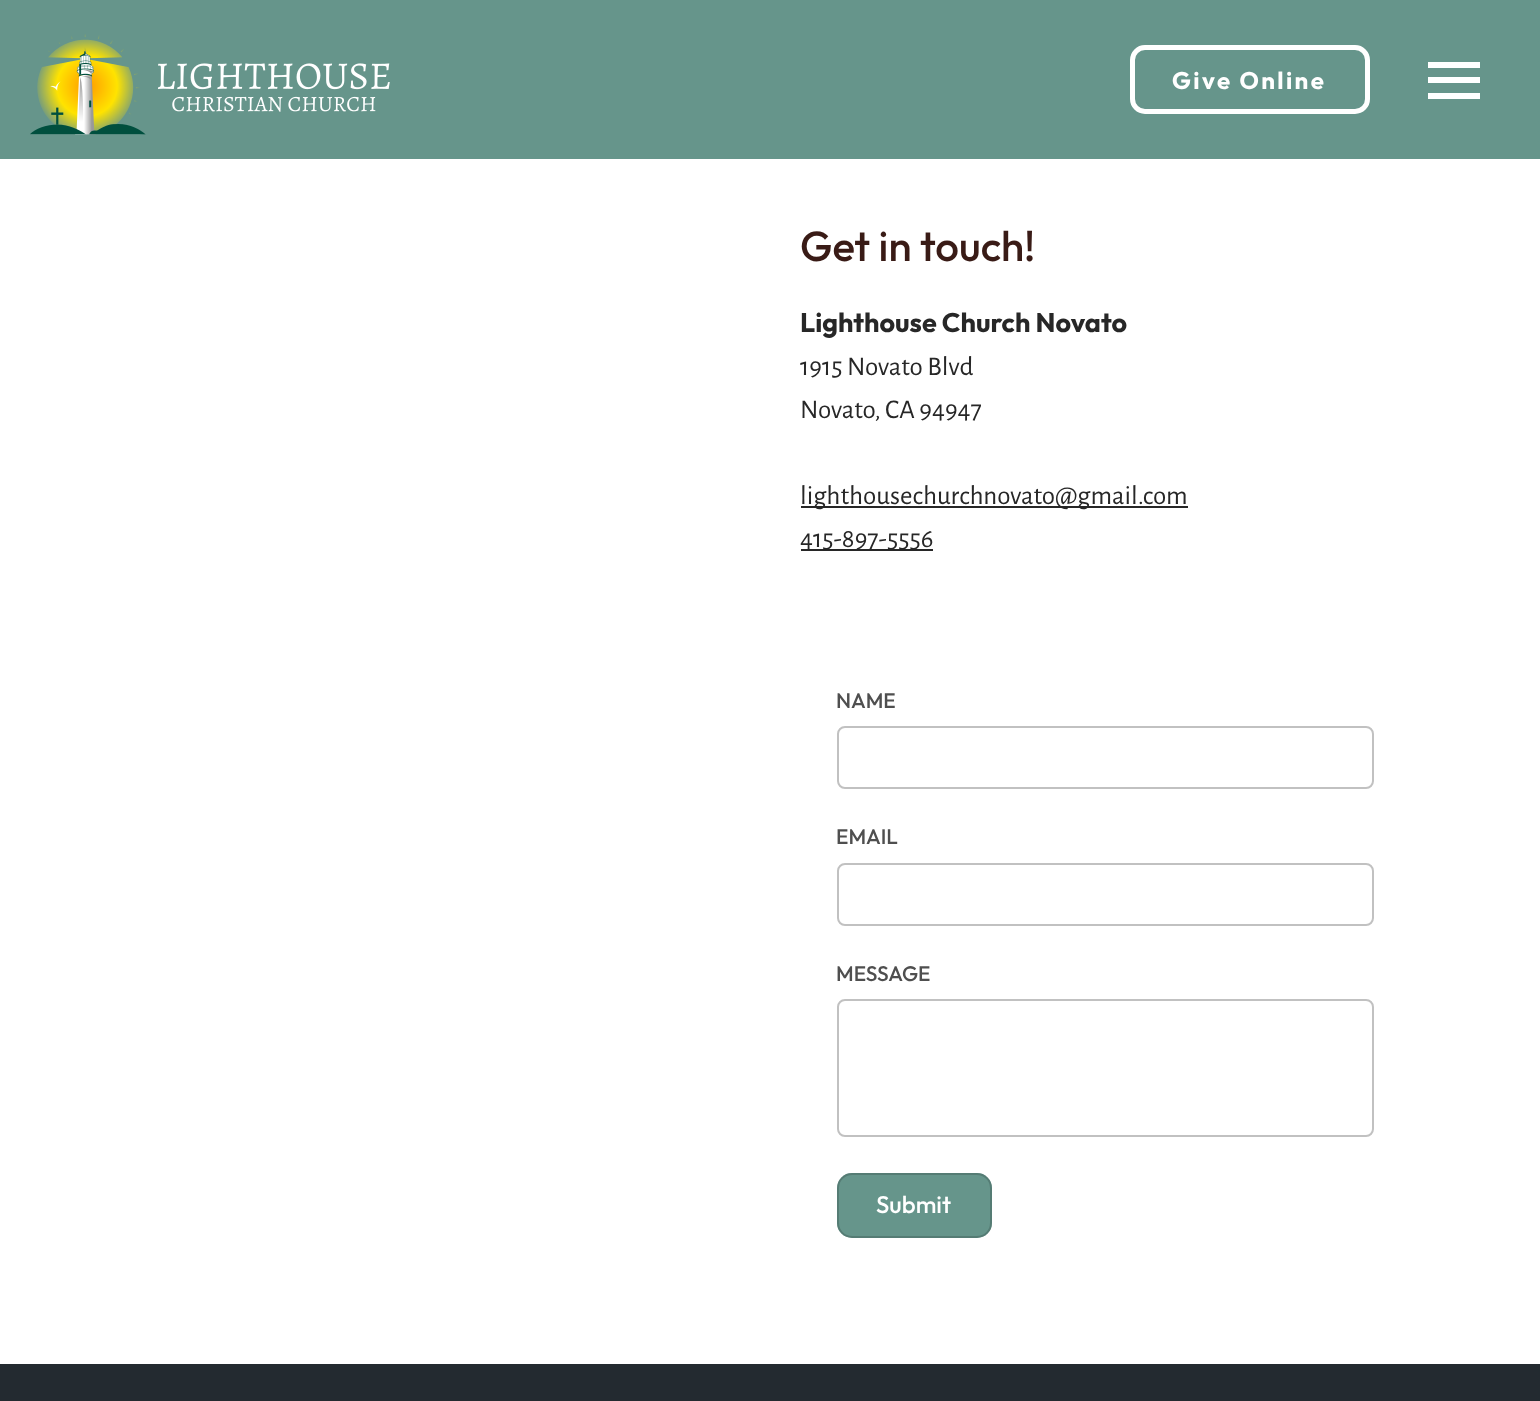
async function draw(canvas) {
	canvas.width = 1540;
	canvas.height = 1401;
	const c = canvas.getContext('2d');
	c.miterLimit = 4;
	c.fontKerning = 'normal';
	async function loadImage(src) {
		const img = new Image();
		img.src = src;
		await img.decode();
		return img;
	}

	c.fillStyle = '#fff';
	c.fillRect(0, 0, 1540, 1401);
	c.fillStyle = '#66958b';
	c.fillRect(0, 0, 1540, 159);
	c.drawImage(await loadImage('img1.png'), 30, 34, 360, 101);
	c.beginPath();
	c.roundRect(1132.5, 47.5, 235, 64, 12.5);
	c.strokeStyle = '#fff';
	c.lineWidth = 5;
	c.stroke();
	c.letterSpacing = '2.4px';
	c.font = 'bold 24px Outfit';
	c.fillStyle = '#fff';
	c.fillText('Give Online', 1172, 89);
	for (const [x, y, w, h, color] of [
		[1428, 62, 52, 6, '#fff'],
		[1428, 77, 52, 6, '#fff'],
		[1428, 93, 52, 6, '#fff'],
	]) {
		c.fillStyle = color;
		c.fillRect(x, y, w, h);
	}
	c.letterSpacing = '0px';
	c.font = '500 42px Outfit';
	c.fillStyle = '#391b16';
	c.fillText('Get in touch!', 800, 261);
	c.font = 'bold 27px Outfit';
	c.fillStyle = '#272727';
	c.fillText('Lighthouse Church Novato', 800, 332);
	c.font = '27px Alegreya Sans';
	c.fillText('1915 Novato Blvd', 800, 375);
	c.fillText('Novato, CA 94947', 800, 418);
	c.fillRect(801, 506, 387, 2);
	c.fillText('lighthousechurchnovato@gmail.com', 800, 504);
	c.fillRect(801, 549, 132, 2);
	c.fillText('415-897-5556', 800, 547);
	c.font = '500 21px Outfit';
	c.fillStyle = '#4f4f4f';
	c.fillText('NAME', 836, 708);
	c.beginPath();
	c.roundRect(838, 727, 535, 61, 7);
	c.strokeStyle = '#c1c1c1';
	c.lineWidth = 2;
	c.stroke();
	c.fillText('EMAIL', 836, 844);
	c.beginPath();
	c.roundRect(838, 864, 535, 61, 7);
	c.stroke();
	c.fillText('MESSAGE', 836, 981);
	c.beginPath();
	c.roundRect(838, 1000, 535, 136, 7);
	c.stroke();
	c.fillStyle = '#66958b';
	c.beginPath();
	c.roundRect(837, 1173, 155, 65, 15);
	c.fill();
	c.beginPath();
	c.roundRect(838, 1174, 153, 63, 14);
	c.strokeStyle = '#44635d80';
	c.stroke();
	c.font = '500 24px Outfit';
	c.fillStyle = '#fff';
	c.fillText('Submit', 876, 1213);
	c.fillStyle = '#232a30';
	c.fillRect(0, 1364, 1540, 37);
}

draw(document.querySelector('canvas'));
